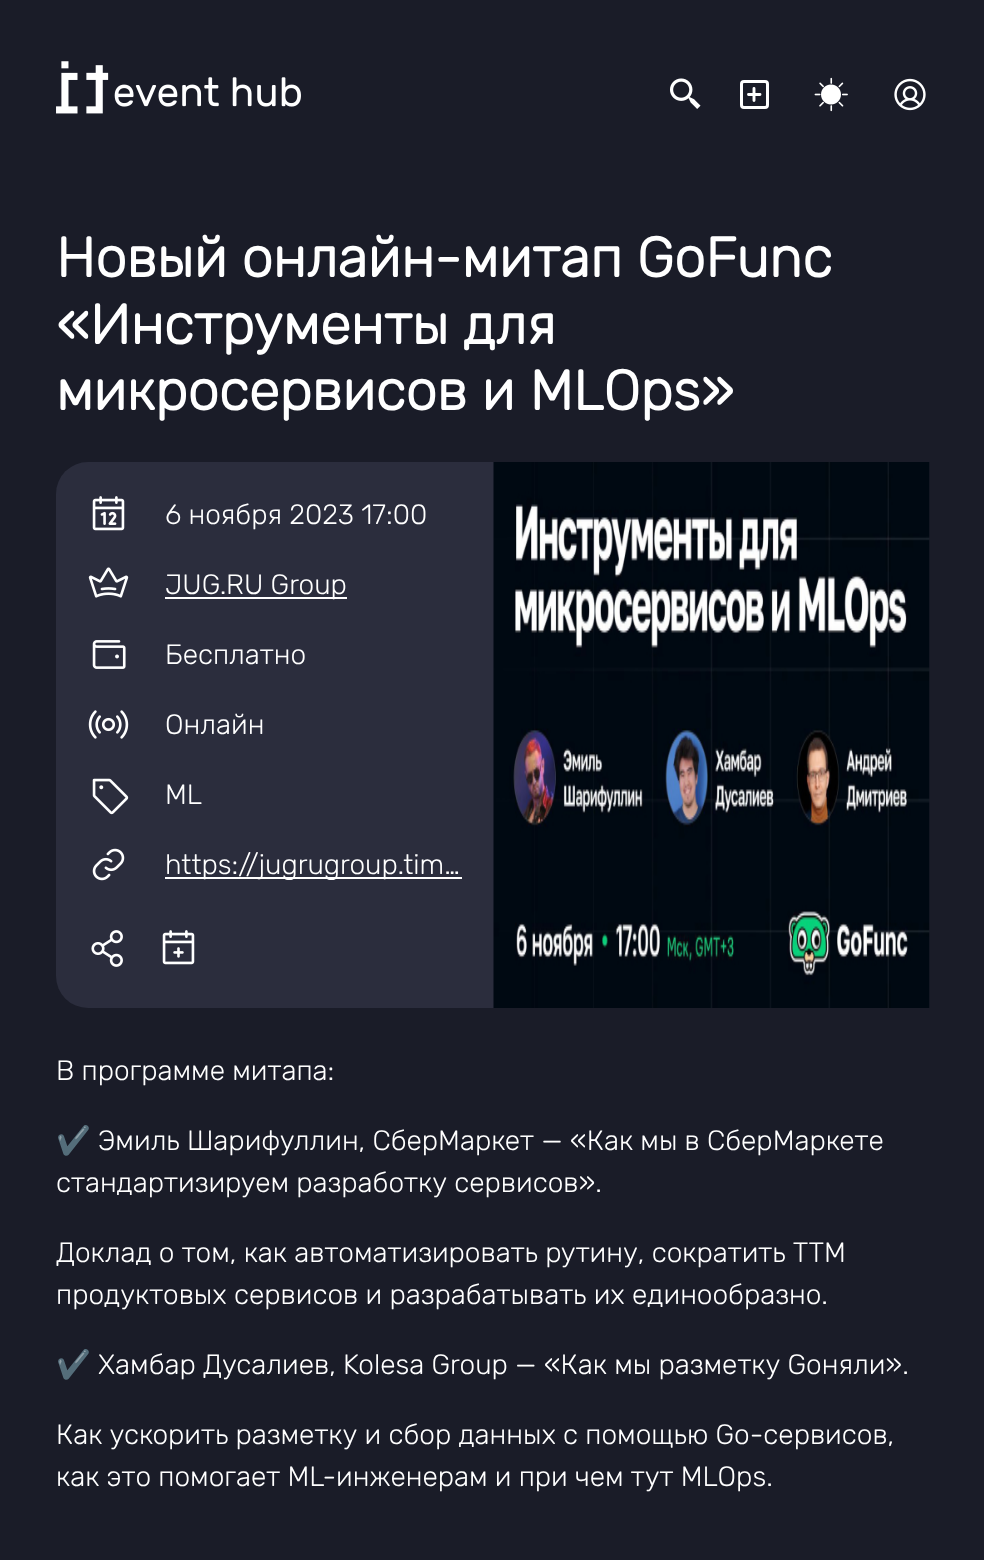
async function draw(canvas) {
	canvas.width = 984;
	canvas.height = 1560;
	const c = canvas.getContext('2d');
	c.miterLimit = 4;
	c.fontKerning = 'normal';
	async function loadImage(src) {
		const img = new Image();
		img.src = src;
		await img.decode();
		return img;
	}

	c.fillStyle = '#1a1c28';
	c.fillRect(0, 0, 984, 1560);
	c.drawImage(await loadImage('img1.png'), 56, 61, 245, 53);
	c.drawImage(await loadImage('img2.png'), 670, 78, 31, 31);
	c.beginPath();
	c.roundRect(741.5, 81.5, 26, 26, 2.5);
	c.strokeStyle = '#fff';
	c.lineWidth = 3;
	c.stroke();
	c.beginPath();
	c.moveTo(754, 88.5);
	c.lineTo(754, 100.5);
	c.moveTo(748.5, 94.5);
	c.lineTo(760, 94.5);
	c.lineWidth = 2.9;
	c.lineCap = 'round';
	c.lineJoin = 'round';
	c.stroke();
	c.drawImage(await loadImage('img3.png'), 814, 77, 34, 35);
	c.drawImage(await loadImage('img4.png'), 894, 78, 32, 33);
	c.font = 'bold 56px Rubik';
	c.fillStyle = '#fff';
	for (const [text, x, y] of [
		['Новый онлайн-митап GoFunc', 56, 277],
		['«Инструменты для', 56, 344],
		['микросервисов и MLOps»', 56, 410],
	]) {
		c.fillText(text, x, y);
	}
	c.fillStyle = '#2b2d3d';
	c.beginPath();
	c.roundRect(56, 462, 873, 546, 32);
	c.fill();
	c.drawImage(await loadImage('img5.png'), 92, 496, 33, 35);
	c.font = '300 28px Rubik';
	c.fillStyle = '#fff';
	c.fillText('6 ноября 2023 17:00', 165, 524);
	c.drawImage(await loadImage('img6.png'), 88, 567, 41, 31);
	c.fillRect(165, 597, 182, 2);
	c.fillText('JUG.RU Group', 165, 594);
	c.drawImage(await loadImage('img7.png'), 92, 640, 34, 29);
	c.fillText('Бесплатно', 165, 664);
	c.drawImage(await loadImage('img8.png'), 88, 710, 41, 29);
	c.fillText('Онлайн', 165, 734);
	c.drawImage(await loadImage('img9.png'), 92, 778, 37, 37);
	c.fillText('ML', 165, 804);
	c.drawImage(await loadImage('img10.png'), 92, 848, 33, 33);
	c.fillRect(165, 877, 297, 2);
	c.save();
	c.beginPath();
	c.rect(165, 847, 297, 33);
	c.clip();
	c.fillText('https://jugrugroup.tim…', 165, 874);
	c.restore();
	c.drawImage(await loadImage('img11.png'), 91, 930, 32, 37);
	c.drawImage(await loadImage('img12.png'), 162, 930, 33, 35);
	c.drawImage(await loadImage('img13.png'), 493, 462, 437, 546);
	c.fillText('В программе митапа:', 56, 1080);
	c.font = '28px Noto Color Emoji';
	c.fillText('✔️', 56, 1150);
	c.font = '300 28px Rubik';
	for (const [text, x, y] of [
		['Эмиль Шарифуллин, СберМаркет — «Как мы в СберМаркете', 98, 1150],
		['стандартизируем разработку сервисов».', 56, 1192],
		['Доклад о том, как автоматизировать рутину, сократить TTM', 56, 1262],
		['продуктовых сервисов и разрабатывать их единообразно.', 56, 1304],
	]) {
		c.fillText(text, x, y);
	}
	c.font = '28px Noto Color Emoji';
	c.fillText('✔️', 56, 1374);
	c.font = '300 28px Rubik';
	for (const [text, x, y] of [
		['Хамбар Дусалиев, Kolesa Group — «Как мы разметку Goняли».', 98, 1374],
		['Как ускорить разметку и сбор данных с помощью Go-сервисов,', 56, 1444],
		['как это помогает ML-инженерам и при чем тут MLOps.', 56, 1486],
	]) {
		c.fillText(text, x, y);
	}
}

draw(document.querySelector('canvas'));
